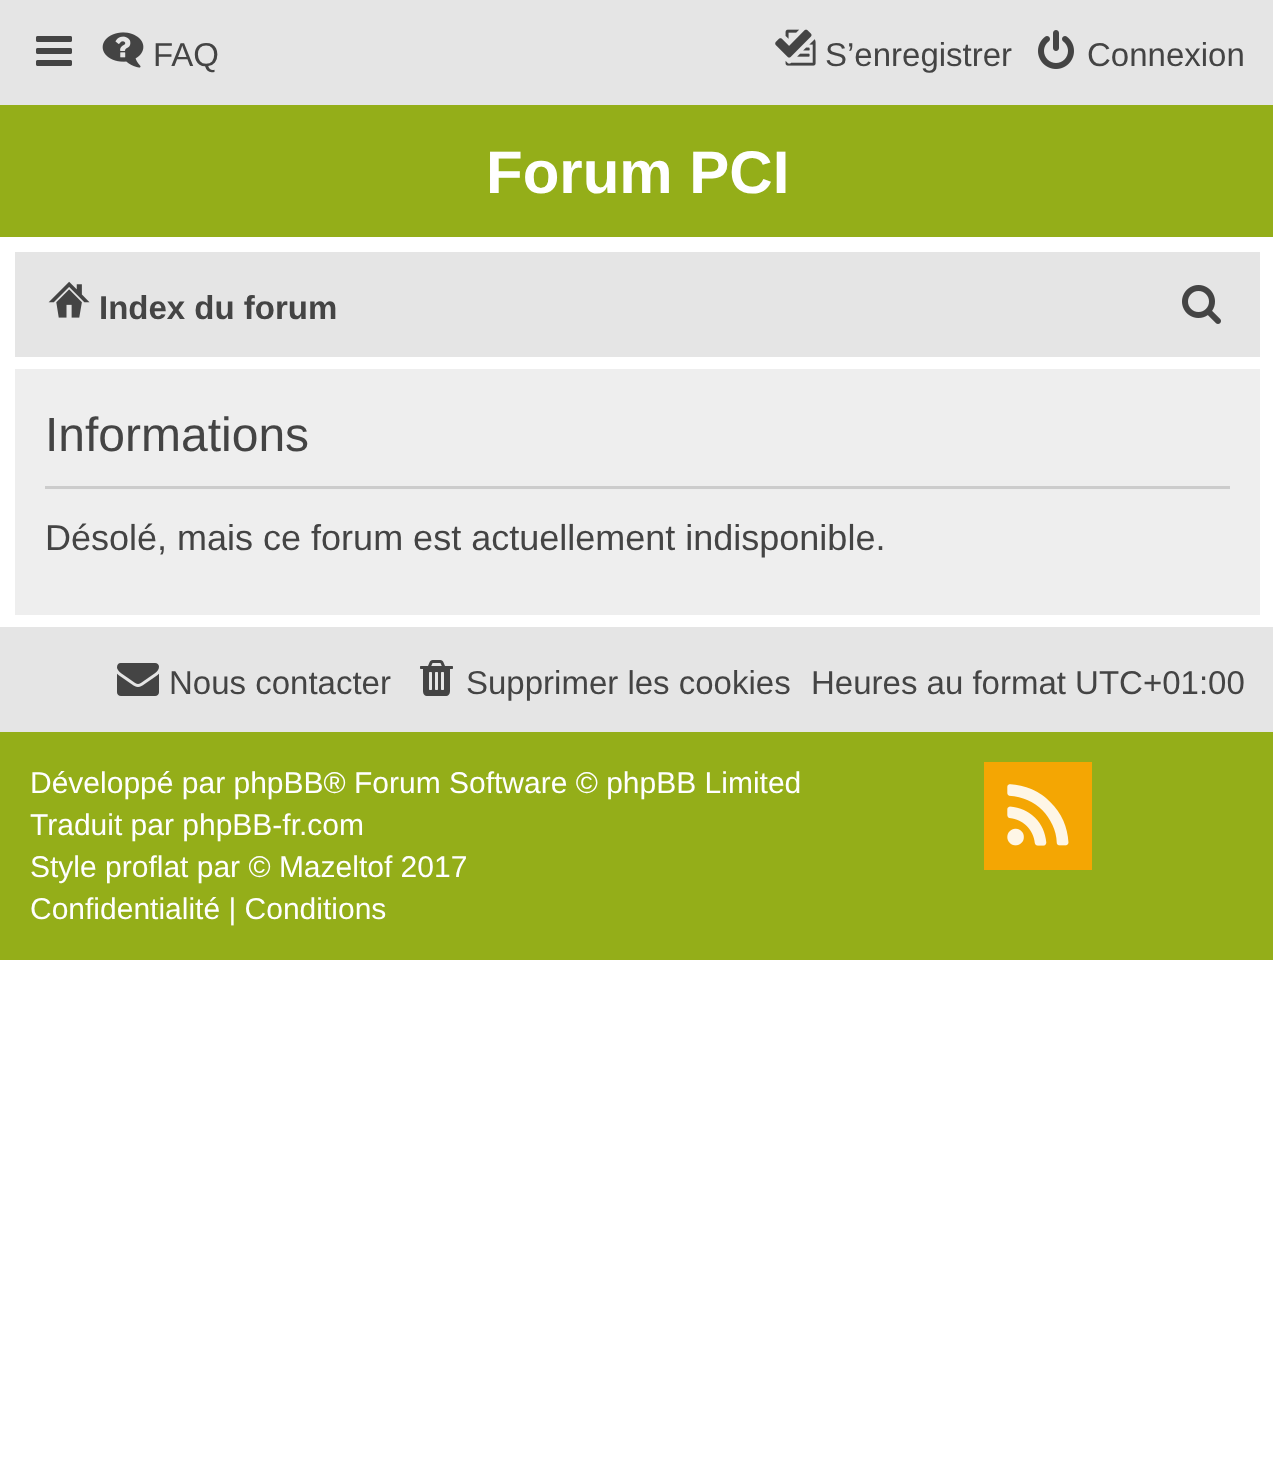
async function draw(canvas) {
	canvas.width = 1273;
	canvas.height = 1477;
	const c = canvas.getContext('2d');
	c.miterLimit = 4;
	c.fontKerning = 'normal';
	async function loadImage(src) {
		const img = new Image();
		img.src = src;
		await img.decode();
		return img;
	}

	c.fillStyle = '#fff';
	c.fillRect(0, 0, 1273, 1477);
	c.fillStyle = '#e5e5e5';
	c.fillRect(0, 0, 1273, 105);
	c.drawImage(await loadImage('img1.png'), 36, 36, 36, 30);
	c.drawImage(await loadImage('img2.png'), 102, 32, 42, 36);
	c.font = '33px Liberation Sans';
	c.fillStyle = '#444';
	c.fillText('FAQ', 153, 66);
	c.drawImage(await loadImage('img3.png'), 775, 29, 41, 37);
	c.fillText('S’enregistrer', 825, 66);
	c.drawImage(await loadImage('img4.png'), 1038, 30, 36, 39);
	c.fillText('Connexion', 1087, 66);
	c.fillStyle = '#94ae19';
	c.fillRect(0, 105, 1273, 132);
	c.font = 'bold 60px Liberation Sans';
	c.fillStyle = '#fff';
	c.fillText('Forum PCI', 486, 193);
	c.fillStyle = '#e5e5e5';
	c.fillRect(15, 252, 1245, 105);
	c.drawImage(await loadImage('img5.png'), 48, 281, 42, 37);
	c.font = 'bold 33px Liberation Sans';
	c.fillStyle = '#444';
	c.fillText('Index du forum', 99, 319);
	c.drawImage(await loadImage('img6.png'), 1182, 285, 39, 39);
	c.fillStyle = '#eee';
	c.fillRect(15, 369, 1245, 246);
	c.fillStyle = '#ccc';
	c.fillRect(45, 486, 1185, 3);
	c.font = '48px Liberation Sans';
	c.fillStyle = '#444';
	c.fillText('Informations', 45, 451);
	c.font = '36px Liberation Sans';
	c.fillText('Désolé, mais ce forum est actuellement indisponible.', 45, 550);
	c.fillStyle = '#e5e5e5';
	c.fillRect(0, 627, 1273, 105);
	c.drawImage(await loadImage('img7.png'), 117, 663, 42, 33);
	c.font = '33px Liberation Sans';
	c.fillStyle = '#444';
	c.fillText('Nous contacter', 169, 694);
	c.drawImage(await loadImage('img8.png'), 420, 660, 33, 36);
	c.fillText('Supprimer les cookies', 466, 694);
	c.fillText('Heures au format UTC+01:00', 811, 694);
	c.fillStyle = '#94ae19';
	c.fillRect(0, 732, 1273, 228);
	c.font = '30px Liberation Sans';
	c.fillStyle = '#fff';
	for (const [text, x, y] of [
		['Développé par phpBB® Forum Software © phpBB Limited', 30, 793],
		['Traduit par phpBB-fr.com', 30, 835],
		['Style proflat par © Mazeltof 2017', 30, 877],
		['Confidentialité | Conditions', 30, 919],
	]) {
		c.fillText(text, x, y);
	}
	c.fillStyle = '#f4a603';
	c.fillRect(984, 762, 108, 108);
	c.drawImage(await loadImage('img9.png'), 1007, 784, 62, 62);
}

draw(document.querySelector('canvas'));
